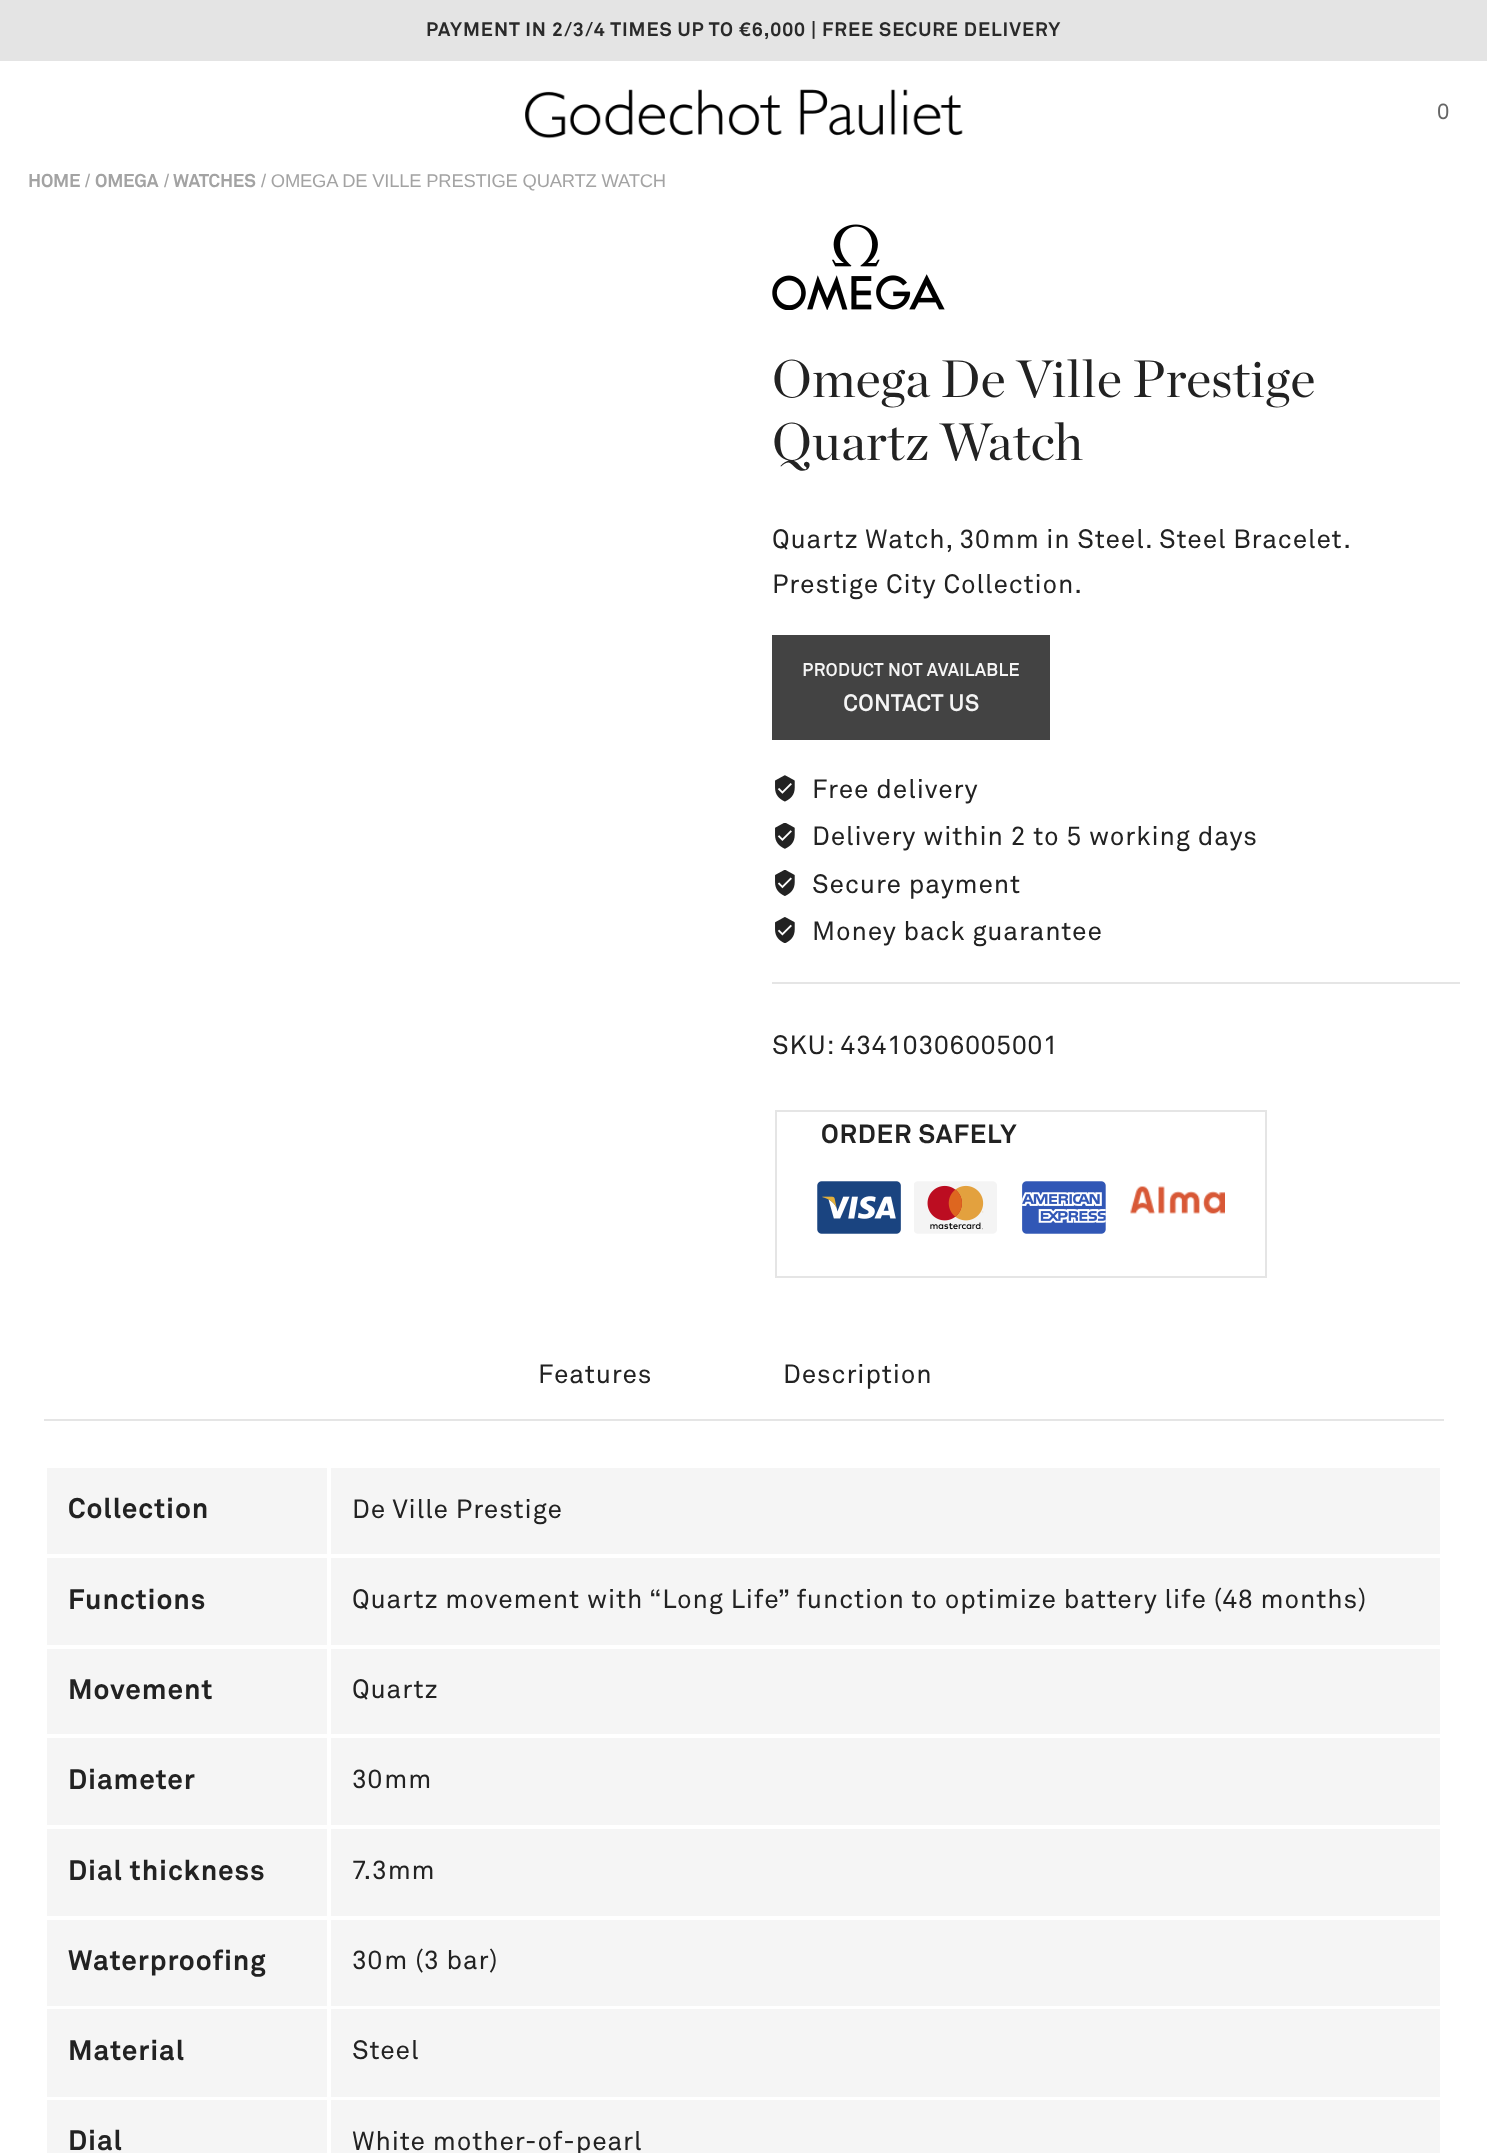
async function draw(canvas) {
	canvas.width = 1487;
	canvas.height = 2153;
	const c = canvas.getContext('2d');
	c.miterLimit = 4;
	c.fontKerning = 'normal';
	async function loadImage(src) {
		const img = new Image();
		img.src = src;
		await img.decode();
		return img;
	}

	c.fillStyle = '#fff';
	c.fillRect(0, 0, 1487, 2153);
	c.fillStyle = '#e4e4e4';
	c.fillRect(0, 0, 1487, 61);
	c.letterSpacing = '0.95px';
	c.font = 'bold 19.25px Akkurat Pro';
	c.fillStyle = '#2a2a2a';
	c.fillText('PAYMENT IN 2/3/4 TIMES UP TO €6,000 | FREE SECURE DELIVERY', 426, 36);
	c.drawImage(await loadImage('img1.png'), 525, 89, 438, 50);
	c.letterSpacing = '0.5px';
	c.font = '22px Akkurat Pro';
	c.fillStyle = '#666';
	c.fillText('0', 1437, 119);
	c.letterSpacing = '-0.2px';
	c.font = 'bold 18.4px Akkurat Pro';
	c.fillStyle = '#a3a3a3';
	c.fillText('HOME', 28, 187);
	c.font = '18.4px Liberation Sans';
	c.fillText('/', 85, 187);
	c.font = 'bold 18.4px Akkurat Pro';
	c.fillText('OMEGA', 95, 187);
	c.font = '18.4px Liberation Sans';
	c.fillText('/', 164, 187);
	c.font = 'bold 18.4px Akkurat Pro';
	c.fillText('WATCHES', 173, 187);
	c.font = '18.4px Liberation Sans';
	c.fillText('/ OMEGA DE VILLE PRESTIGE QUARTZ WATCH', 261, 187);
	c.drawImage(await loadImage('img2.png'), 772, 224, 173, 86);
	c.letterSpacing = '0.4px';
	c.font = '52.5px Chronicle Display';
	c.fillStyle = '#222';
	c.fillText('Omega De Ville Prestige', 772, 397);
	c.fillText('Quartz Watch', 772, 460);
	c.letterSpacing = '0.88px';
	c.wordSpacing = '-0.25px';
	c.font = '26.25px Akkurat Pro';
	c.fillText('Quartz Watch, 30mm in Steel. Steel Bracelet.', 772, 548);
	c.wordSpacing = '0px';
	c.fillText('Prestige City Collection.', 772, 593);
	c.fillStyle = '#434343';
	c.fillRect(772, 635, 278, 105);
	c.letterSpacing = '0.5px';
	c.font = 'bold 17.5px "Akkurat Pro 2"';
	c.fillStyle = '#f5f5f5';
	c.fillText('PRODUCT NOT AVAILABLE', 802, 676);
	c.font = 'bold 22.75px "Akkurat Pro 2"';
	c.fillText('CONTACT US', 843, 711);
	c.drawImage(await loadImage('img3.png'), 775, 775, 20, 27);
	c.letterSpacing = '0.88px';
	c.font = '26.25px Akkurat Pro';
	c.fillStyle = '#222';
	c.fillText('Free delivery', 812, 798);
	c.drawImage(await loadImage('img4.png'), 775, 823, 20, 26);
	c.fillText('Delivery within 2 to 5 working days', 812, 845);
	c.drawImage(await loadImage('img5.png'), 775, 870, 20, 26);
	c.fillText('Secure payment', 812, 893);
	c.drawImage(await loadImage('img6.png'), 775, 917, 20, 26);
	c.fillText('Money back guarantee', 812, 940);
	c.fillStyle = '#e5e5e5';
	c.fillRect(772, 982, 688, 2);
	c.fillStyle = '#222';
	c.fillText('SKU: 43410306005001', 772, 1054);
	c.strokeStyle = '#e5e5e5';
	c.lineWidth = 2;
	c.strokeRect(776, 1111, 490, 166);
	c.font = 'bold 26.25px Akkurat Pro';
	c.fillText('ORDER SAFELY', 821, 1143);
	c.drawImage(await loadImage('img7.png'), 817, 1181, 84, 53);
	c.drawImage(await loadImage('img8.png'), 914, 1181, 83, 53);
	c.drawImage(await loadImage('img9.png'), 1022, 1181, 84, 53);
	c.drawImage(await loadImage('img10.png'), 1130, 1186, 95, 28);
	c.font = '26.25px Akkurat Pro';
	c.fillText('Features', 538, 1383);
	c.fillText('Description', 783, 1383);
	c.fillStyle = '#e5e5e5';
	c.fillRect(44, 1419, 1400, 2);
	c.fillStyle = '#f5f5f5';
	c.fillRect(47, 1468, 280, 86);
	c.font = 'bold 28px Akkurat Pro';
	c.fillStyle = '#222';
	c.fillText('Collection', 68, 1518);
	c.fillStyle = '#f5f5f5';
	c.fillRect(331, 1468, 1109, 86);
	c.font = '26.25px Akkurat Pro';
	c.fillStyle = '#222';
	c.fillText('De Ville Prestige', 352, 1518);
	c.fillStyle = '#f5f5f5';
	c.fillRect(47, 1558, 280, 87);
	c.font = 'bold 28px Akkurat Pro';
	c.fillStyle = '#222';
	c.fillText('Functions', 68, 1609);
	c.fillStyle = '#f5f5f5';
	c.fillRect(331, 1558, 1109, 87);
	c.font = '26.25px Akkurat Pro';
	c.fillStyle = '#222';
	c.fillText('Quartz movement with “Long Life” function to optimize battery life (48 months)', 352, 1608);
	c.fillStyle = '#f5f5f5';
	c.fillRect(47, 1649, 280, 85);
	c.font = 'bold 28px Akkurat Pro';
	c.fillStyle = '#222';
	c.fillText('Movement', 68, 1699);
	c.fillStyle = '#f5f5f5';
	c.fillRect(331, 1649, 1109, 85);
	c.font = '26.25px Akkurat Pro';
	c.fillStyle = '#222';
	c.fillText('Quartz', 352, 1698);
	c.fillStyle = '#f5f5f5';
	c.fillRect(47, 1738, 280, 87);
	c.font = 'bold 28px Akkurat Pro';
	c.fillStyle = '#222';
	c.fillText('Diameter', 68, 1789);
	c.fillStyle = '#f5f5f5';
	c.fillRect(331, 1738, 1109, 87);
	c.font = '26.25px Akkurat Pro';
	c.fillStyle = '#222';
	c.fillText('30mm', 352, 1788);
	c.fillStyle = '#f5f5f5';
	c.fillRect(47, 1829, 280, 87);
	c.font = 'bold 28px Akkurat Pro';
	c.fillStyle = '#222';
	c.fillText('Dial thickness', 68, 1880);
	c.fillStyle = '#f5f5f5';
	c.fillRect(331, 1829, 1109, 87);
	c.font = '26.25px Akkurat Pro';
	c.fillStyle = '#222';
	c.fillText('7.3mm', 352, 1879);
	c.fillStyle = '#f5f5f5';
	c.fillRect(47, 1920, 280, 86);
	c.font = 'bold 28px Akkurat Pro';
	c.fillStyle = '#222';
	c.fillText('Waterproofing', 68, 1970);
	c.fillStyle = '#f5f5f5';
	c.fillRect(331, 1920, 1109, 86);
	c.font = '26.25px Akkurat Pro';
	c.fillStyle = '#222';
	c.fillText('30m (3 bar)', 352, 1969);
	c.fillStyle = '#f5f5f5';
	c.fillRect(47, 2009, 280, 88);
	c.font = 'bold 28px Akkurat Pro';
	c.fillStyle = '#222';
	c.fillText('Material', 68, 2060);
	c.fillStyle = '#f5f5f5';
	c.fillRect(331, 2009, 1109, 88);
	c.font = '26.25px Akkurat Pro';
	c.fillStyle = '#222';
	c.fillText('Steel', 352, 2059);
	c.fillStyle = '#f5f5f5';
	c.fillRect(47, 2100, 280, 53);
	c.font = 'bold 28px Akkurat Pro';
	c.fillStyle = '#222';
	c.fillText('Dial', 68, 2150);
	c.fillStyle = '#f5f5f5';
	c.fillRect(331, 2100, 1109, 53);
	c.font = '26.25px Akkurat Pro';
	c.fillStyle = '#222';
	c.fillText('White mother-of-pearl', 352, 2150);
}

draw(document.querySelector('canvas'));
